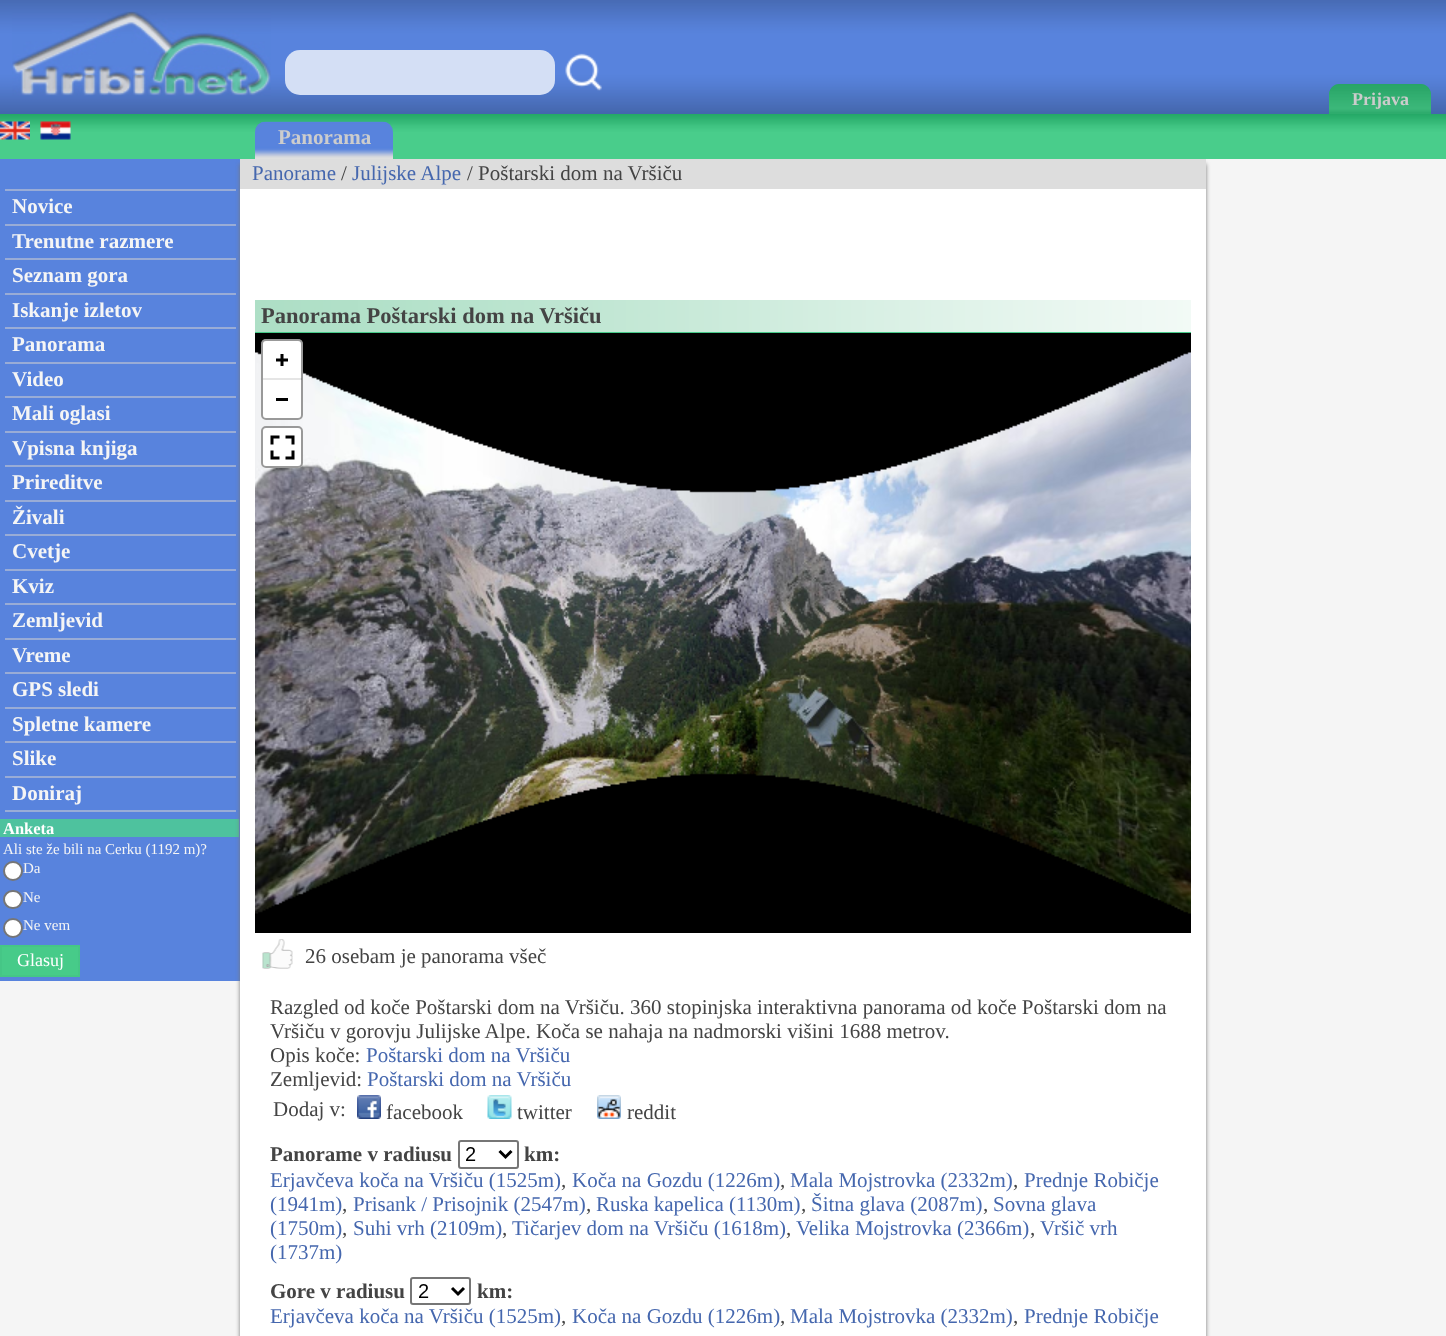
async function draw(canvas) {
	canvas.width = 1446;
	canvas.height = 1336;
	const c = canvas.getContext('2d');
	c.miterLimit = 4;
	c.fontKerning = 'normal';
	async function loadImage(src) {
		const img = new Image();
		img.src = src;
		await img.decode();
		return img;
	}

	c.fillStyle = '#f5f5f5';
	c.fillRect(0, 0, 1446, 1336);
	c.drawImage(await loadImage('img1.png'), 0, 0, 1446, 114);
	c.drawImage(await loadImage('img2.png'), 12, 11, 259, 85);
	c.fillStyle = '#d4dff5';
	c.beginPath();
	c.roundRect(285, 50, 270, 45, 15);
	c.fill();
	c.drawImage(await loadImage('img3.png'), 565, 53, 37, 38);
	c.fillStyle = '#2eac6d';
	c.beginPath();
	c.roundRect(1329, 84, 102, 30, [11, 11, 0, 0]);
	c.fill();
	c.drawImage(await loadImage('img4.png'), 1329, 84, 102, 28);
	c.font = 'bold 18px Liberation Serif';
	c.fillStyle = '#ccc';
	c.fillText('Prijava', 1352, 105);
	c.drawImage(await loadImage('img5.png'), 0, 114, 1446, 45);
	c.drawImage(await loadImage('img6.png'), 0, 121, 30, 19);
	c.drawImage(await loadImage('img7.png'), 40, 121, 31, 19);
	c.drawImage(await loadImage('img8.png'), 255, 121, 138, 38);
	c.font = 'bold 21px Liberation Serif';
	c.fillText('Panorama', 278, 144);
	c.fillStyle = '#5883dd';
	c.fillRect(0, 159, 240, 822);
	c.fillStyle = '#99acd6';
	c.fillRect(5, 189, 231, 2);
	c.fillStyle = '#f5f5f5';
	c.fillText('Novice', 12, 213);
	c.fillStyle = '#99acd6';
	c.fillRect(5, 224, 231, 2);
	c.fillStyle = '#f5f5f5';
	c.fillText('Trenutne razmere', 12, 248);
	c.fillStyle = '#99acd6';
	c.fillRect(5, 258, 231, 2);
	c.fillStyle = '#f5f5f5';
	c.fillText('Seznam gora', 12, 282);
	c.fillStyle = '#99acd6';
	c.fillRect(5, 293, 231, 2);
	c.fillStyle = '#f5f5f5';
	c.fillText('Iskanje izletov', 12, 317);
	c.fillStyle = '#99acd6';
	c.fillRect(5, 327, 231, 2);
	c.fillStyle = '#f5f5f5';
	c.fillText('Panorama', 12, 351);
	c.fillStyle = '#99acd6';
	c.fillRect(5, 362, 231, 2);
	c.fillStyle = '#f5f5f5';
	c.fillText('Video', 12, 386);
	c.fillStyle = '#99acd6';
	c.fillRect(5, 396, 231, 2);
	c.fillStyle = '#f5f5f5';
	c.fillText('Mali oglasi', 12, 420);
	c.fillStyle = '#99acd6';
	c.fillRect(5, 431, 231, 2);
	c.fillStyle = '#f5f5f5';
	c.fillText('Vpisna knjiga', 12, 455);
	c.fillStyle = '#99acd6';
	c.fillRect(5, 465, 231, 2);
	c.fillStyle = '#f5f5f5';
	c.fillText('Prireditve', 12, 489);
	c.fillStyle = '#99acd6';
	c.fillRect(5, 500, 231, 2);
	c.fillStyle = '#f5f5f5';
	c.fillText('Živali', 12, 524);
	c.fillStyle = '#99acd6';
	c.fillRect(5, 534, 231, 2);
	c.fillStyle = '#f5f5f5';
	c.fillText('Cvetje', 12, 558);
	c.fillStyle = '#99acd6';
	c.fillRect(5, 569, 231, 2);
	c.fillStyle = '#f5f5f5';
	c.fillText('Kviz', 12, 593);
	c.fillStyle = '#99acd6';
	c.fillRect(5, 603, 231, 2);
	c.fillStyle = '#f5f5f5';
	c.fillText('Zemljevid', 12, 627);
	c.fillStyle = '#99acd6';
	c.fillRect(5, 638, 231, 2);
	c.fillStyle = '#f5f5f5';
	c.fillText('Vreme', 12, 662);
	c.fillStyle = '#99acd6';
	c.fillRect(5, 672, 231, 2);
	c.fillStyle = '#f5f5f5';
	c.fillText('GPS sledi', 12, 696);
	c.fillStyle = '#99acd6';
	c.fillRect(5, 707, 231, 2);
	c.fillStyle = '#f5f5f5';
	c.fillText('Spletne kamere', 12, 731);
	c.fillStyle = '#99acd6';
	c.fillRect(5, 741, 231, 2);
	c.fillStyle = '#f5f5f5';
	c.fillText('Slike', 12, 765);
	c.fillStyle = '#99acd6';
	c.fillRect(5, 776, 231, 2);
	c.fillStyle = '#f5f5f5';
	c.fillText('Doniraj', 12, 800);
	c.fillStyle = '#99acd6';
	c.fillRect(5, 810, 231, 2);
	c.fillStyle = '#4ec29e';
	c.fillRect(0, 819, 239, 18);
	c.font = 'bold 16.5px Liberation Serif';
	c.fillStyle = '#fff';
	c.fillText('Anketa', 3, 834);
	c.font = '15px Liberation Serif';
	c.fillStyle = '#f5f5f5';
	c.fillText('Ali ste že bili na Cerku (1192 m)?', 3, 854);
	c.fillStyle = '#fff';
	c.beginPath();
	c.arc(13, 871, 9, 0, 2 * Math.PI);
	c.fill();
	c.strokeStyle = '#767676';
	c.lineWidth = 2;
	c.stroke();
	c.fillStyle = '#f5f5f5';
	c.fillText('Da', 23, 873);
	c.fillStyle = '#fff';
	c.beginPath();
	c.roundRect(4, 891, 18, 17, 8.5);
	c.fill();
	c.stroke();
	c.fillStyle = '#f5f5f5';
	c.fillText('Ne', 23, 902);
	c.fillStyle = '#fff';
	c.beginPath();
	c.arc(13, 928, 9, 0, 2 * Math.PI);
	c.fill();
	c.stroke();
	c.fillStyle = '#f5f5f5';
	c.fillText('Ne vem', 23, 930);
	c.fillStyle = '#47cb89';
	c.beginPath();
	c.rect(1, 946, 78, 30);
	c.fill();
	c.strokeStyle = '#45c686';
	c.stroke();
	c.font = '18px Liberation Serif';
	c.fillStyle = '#fff';
	c.fillText('Glasuj', 17, 966);
	c.fillStyle = '#777';
	c.filter = 'blur(2px)';
	c.beginPath();
	c.rect(240, 164, 966, 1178);
	c.fill();
	c.filter = 'none';
	c.fillStyle = '#fff';
	c.fillRect(240, 189, 966, 1147);
	c.fillStyle = '#ddd';
	c.fillRect(240, 159, 966, 30);
	c.font = '21px Liberation Serif';
	c.fillStyle = '#4567ae';
	c.fillText('Panorame', 252, 180);
	c.fillStyle = '#444';
	c.fillText('/', 341, 180);
	c.fillStyle = '#4567ae';
	c.fillText('Julijske Alpe', 352, 180);
	c.fillStyle = '#444';
	c.fillText('/ Poštarski dom na Vršiču', 467, 180);
	c.drawImage(await loadImage('img9.png'), 255, 300, 936, 32);
	c.fillStyle = '#47cb89';
	c.fillRect(255, 332, 936, 1);
	c.font = 'bold 22.5px Liberation Serif';
	c.fillStyle = '#444';
	c.fillText('Panorama Poštarski dom na Vršiču', 261, 323);
	c.drawImage(await loadImage('img10.png'), 255, 333, 936, 600);
	c.fillStyle = '#fff';
	c.beginPath();
	c.roundRect(261, 339, 42, 81, 5);
	c.fill();
	c.beginPath();
	c.roundRect(262, 340, 40, 79, 4);
	c.strokeStyle = '#00000066';
	c.stroke();
	c.drawImage(await loadImage('img11.png'), 276, 354, 12, 12);
	c.fillStyle = '#000';
	c.fillRect(276, 398, 12, 3);
	c.fillStyle = '#0000001a';
	c.fillRect(263, 378, 39, 2);
	c.fillStyle = '#fff';
	c.beginPath();
	c.roundRect(261, 426, 42, 42, 5);
	c.fill();
	c.drawImage(await loadImage('img12.png'), 270, 435, 25, 25);
	c.beginPath();
	c.roundRect(262, 427, 40, 40, 4);
	c.stroke();
	c.drawImage(await loadImage('img13.png'), 262, 939, 31, 30);
	c.font = '21px Liberation Serif';
	c.fillStyle = '#444';
	for (const [text, x, y] of [
		['26 osebam je panorama všeč', 305, 963],
		['Razgled od koče Poštarski dom na Vršiču. 360 stopinjska interaktivna panorama od koče Poštarski dom na', 270, 1014],
		['Vršiču v gorovju Julijske Alpe. Koča se nahaja na nadmorski višini 1688 metrov.', 270, 1038],
		['Opis koče:', 270, 1062],
	]) {
		c.fillText(text, x, y);
	}
	c.fillStyle = '#4567ae';
	c.fillText('Poštarski dom na Vršiču', 366, 1062);
	c.fillStyle = '#444';
	c.fillText('Zemljevid:', 270, 1086);
	c.fillStyle = '#4567ae';
	c.fillText('Poštarski dom na Vršiču', 367, 1086);
	c.fillStyle = '#444';
	c.fillText('Dodaj v:', 273, 1116);
	c.drawImage(await loadImage('img14.png'), 357, 1095, 24, 24);
	c.fillText('facebook', 386, 1119);
	c.drawImage(await loadImage('img15.png'), 487, 1095, 25, 24);
	c.fillText('twitter', 517, 1119);
	c.drawImage(await loadImage('img16.png'), 597, 1095, 24, 24);
	c.fillText('reddit', 627, 1119);
	c.font = 'bold 21px Liberation Serif';
	c.fillText('Panorame v radiusu', 270, 1161);
	c.beginPath();
	c.roundRect(459, 1141, 59, 27, 2);
	c.strokeStyle = '#767676';
	c.stroke();
	c.beginPath();
	c.moveTo(499.5, 1151);
	c.lineTo(505.5, 1157);
	c.lineTo(511.5, 1151);
	c.strokeStyle = '#000';
	c.lineWidth = 3;
	c.stroke();
	c.font = '20px Liberation Sans';
	c.fillStyle = '#000';
	c.fillText('2', 465, 1161);
	c.font = 'bold 21px Liberation Serif';
	c.fillStyle = '#444';
	c.fillText('km:', 524, 1161);
	c.font = '21px Liberation Serif';
	c.fillStyle = '#4567ae';
	c.fillText('Erjavčeva koča na Vršiču (1525m)', 270, 1187);
	c.fillStyle = '#444';
	c.fillText(',', 561, 1187);
	c.fillStyle = '#4567ae';
	c.fillText('Koča na Gozdu (1226m)', 572, 1187);
	c.fillStyle = '#444';
	c.fillText(',', 780, 1187);
	c.fillStyle = '#4567ae';
	c.fillText('Mala Mojstrovka (2332m)', 790, 1187);
	c.fillStyle = '#444';
	c.fillText(',', 1013, 1187);
	c.fillStyle = '#4567ae';
	c.fillText('Prednje Robičje', 1024, 1187);
	c.fillText('(1941m)', 270, 1211);
	c.fillStyle = '#444';
	c.fillText(',', 342, 1211);
	c.fillStyle = '#4567ae';
	c.fillText('Prisank / Prisojnik (2547m)', 353, 1211);
	c.fillStyle = '#444';
	c.fillText(',', 586, 1211);
	c.fillStyle = '#4567ae';
	c.fillText('Ruska kapelica (1130m)', 596, 1211);
	c.fillStyle = '#444';
	c.fillText(',', 801, 1211);
	c.fillStyle = '#4567ae';
	c.fillText('Šitna glava (2087m)', 811, 1211);
	c.fillStyle = '#444';
	c.fillText(',', 983, 1211);
	c.fillStyle = '#4567ae';
	c.fillText('Sovna glava', 993, 1211);
	c.fillText('(1750m)', 270, 1235);
	c.fillStyle = '#444';
	c.fillText(',', 342, 1235);
	c.fillStyle = '#4567ae';
	c.fillText('Suhi vrh (2109m)', 353, 1235);
	c.fillStyle = '#444';
	c.fillText(',', 502, 1235);
	c.fillStyle = '#4567ae';
	c.fillText('Tičarjev dom na Vršiču (1618m)', 512, 1235);
	c.fillStyle = '#444';
	c.fillText(',', 786, 1235);
	c.fillStyle = '#4567ae';
	c.fillText('Velika Mojstrovka (2366m)', 796, 1235);
	c.fillStyle = '#444';
	c.fillText(',', 1030, 1235);
	c.fillStyle = '#4567ae';
	c.fillText('Vršič vrh', 1040, 1235);
	c.fillText('(1737m)', 270, 1259);
	c.font = 'bold 21px Liberation Serif';
	c.fillStyle = '#444';
	c.fillText('Gore v radiusu', 270, 1298);
	c.beginPath();
	c.roundRect(411, 1278, 59, 26, 2);
	c.strokeStyle = '#767676';
	c.lineWidth = 2;
	c.stroke();
	c.beginPath();
	c.moveTo(452, 1288);
	c.lineTo(458, 1294);
	c.lineTo(464, 1288);
	c.strokeStyle = '#000';
	c.lineWidth = 3;
	c.stroke();
	c.font = '20px Liberation Sans';
	c.fillStyle = '#000';
	c.fillText('2', 418, 1298);
	c.font = 'bold 21px Liberation Serif';
	c.fillStyle = '#444';
	c.fillText('km:', 477, 1298);
	c.font = '21px Liberation Serif';
	c.fillStyle = '#4567ae';
	c.fillText('Erjavčeva koča na Vršiču (1525m)', 270, 1323);
	c.fillStyle = '#444';
	c.fillText(',', 561, 1323);
	c.fillStyle = '#4567ae';
	c.fillText('Koča na Gozdu (1226m)', 572, 1323);
	c.fillStyle = '#444';
	c.fillText(',', 780, 1323);
	c.fillStyle = '#4567ae';
	c.fillText('Mala Mojstrovka (2332m)', 790, 1323);
	c.fillStyle = '#444';
	c.fillText(',', 1013, 1323);
	c.fillStyle = '#4567ae';
	c.fillText('Prednje Robičje', 1024, 1323);
}

draw(document.querySelector('canvas'));
